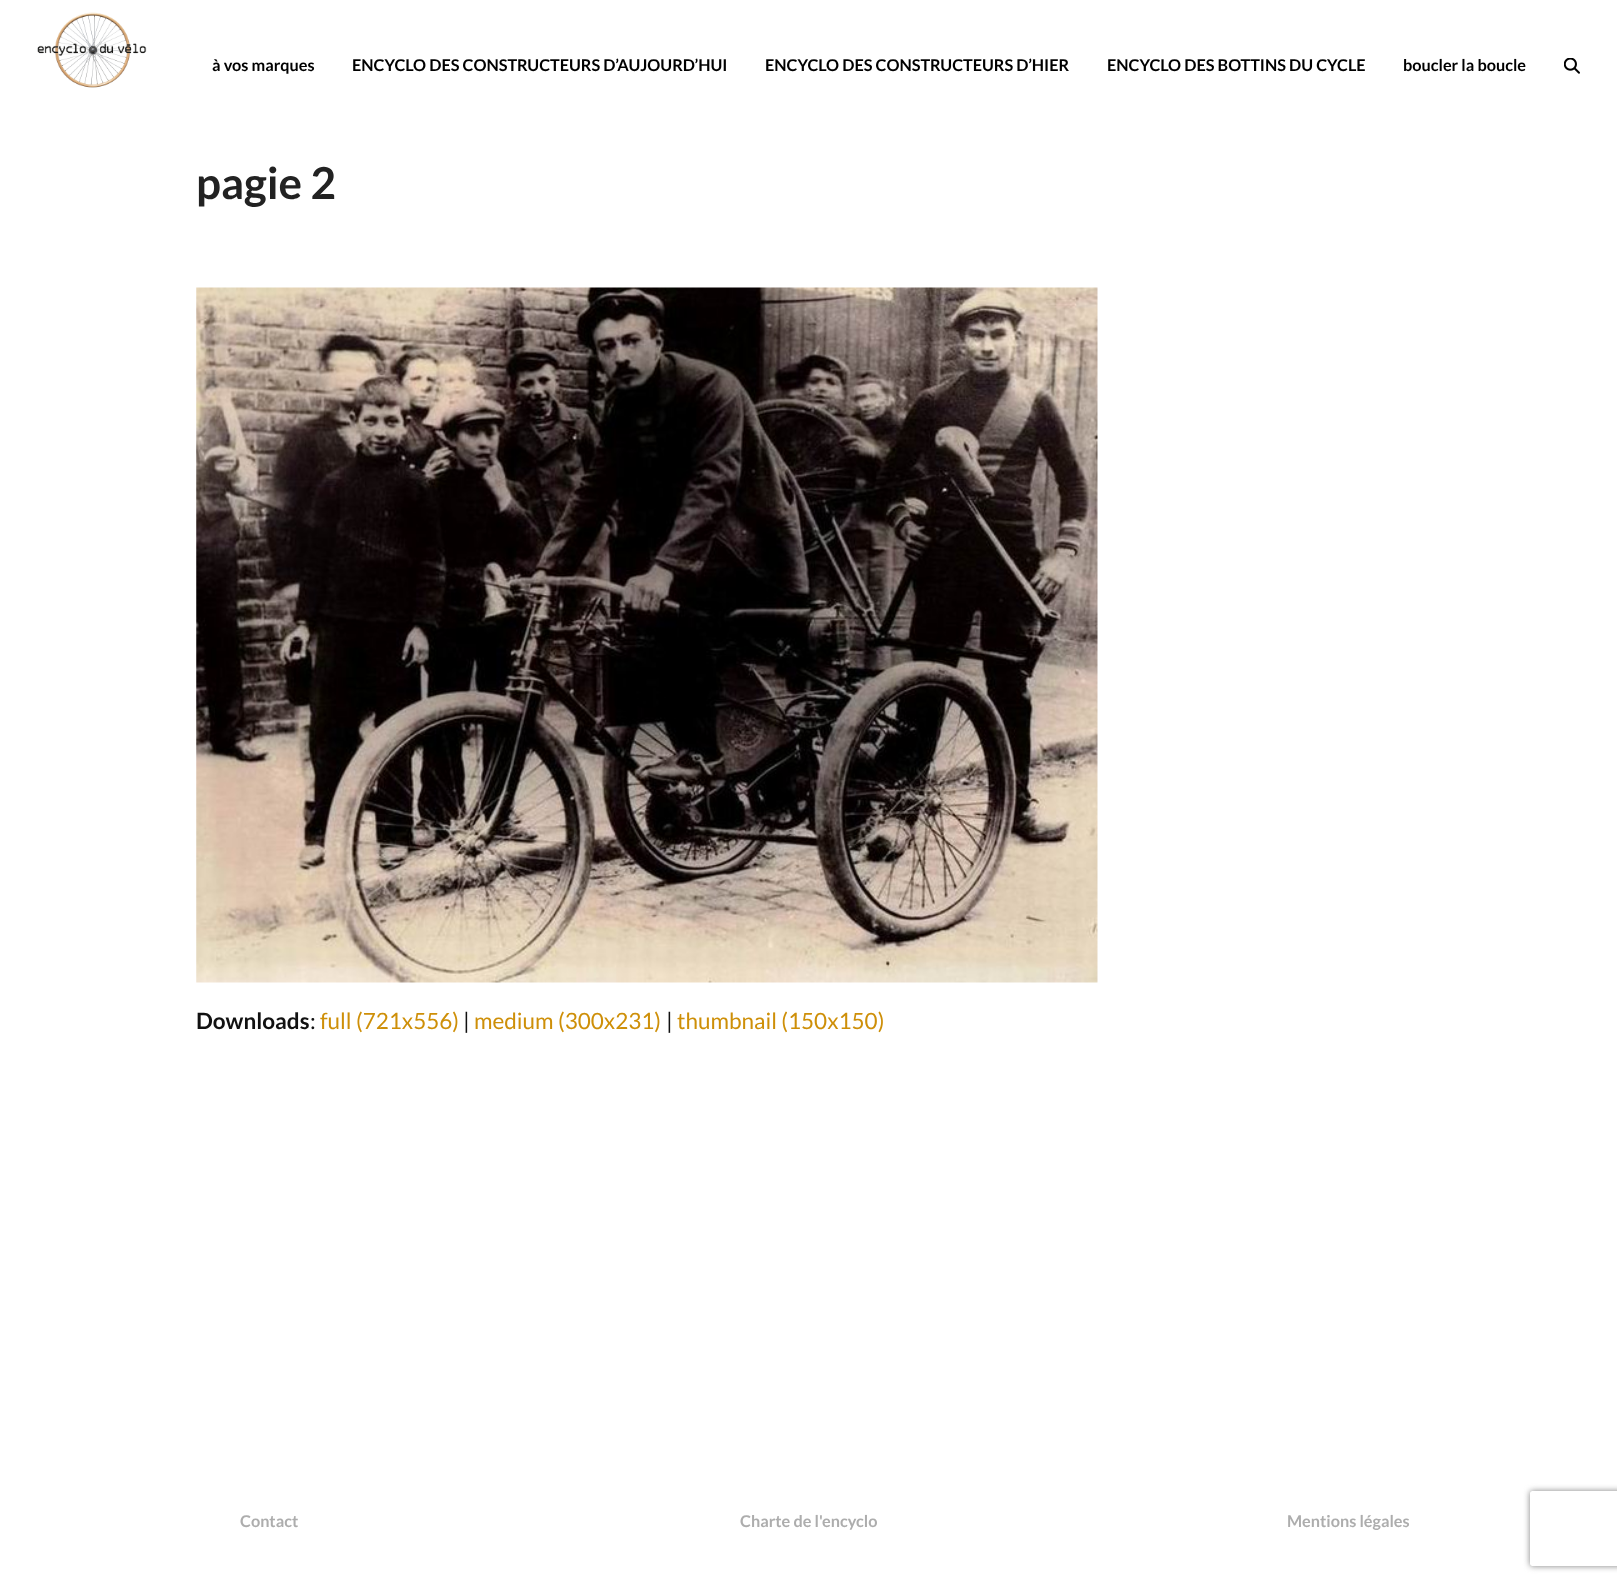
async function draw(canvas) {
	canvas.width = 1617;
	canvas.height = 1583;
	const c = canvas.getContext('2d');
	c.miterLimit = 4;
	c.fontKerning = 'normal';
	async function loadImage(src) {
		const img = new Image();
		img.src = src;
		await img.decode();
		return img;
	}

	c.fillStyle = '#fff';
	c.fillRect(0, 0, 1617, 1583);
	c.drawImage(await loadImage('img1.png'), 37, 12, 110, 76);
	c.font = 'bold 16.25px Lato';
	c.fillStyle = '#000';
	for (const [text, x, y] of [
		['à vos marques', 212, 71],
		['ENCYCLO DES CONSTRUCTEURS D’AUJOURD’HUI', 352, 71],
		['ENCYCLO DES CONSTRUCTEURS D’HIER', 765, 71],
		['ENCYCLO DES BOTTINS DU CYCLE', 1107, 71],
		['boucler la boucle', 1403, 71],
	]) {
		c.fillText(text, x, y);
	}
	c.drawImage(await loadImage('img2.png'), 1564, 58, 16, 16);
	c.font = 'bold 44px Lato';
	c.fillStyle = '#222';
	c.fillText('pagie 2', 196, 199);
	c.drawImage(await loadImage('img3.png'), 196, 287, 902, 696);
	c.font = 'bold 22.5px Lato';
	c.fillStyle = '#111';
	c.fillText('Downloads', 196, 1029);
	c.font = '22.5px Lato';
	c.fillText(':', 310, 1029);
	c.fillStyle = '#ce8f08';
	c.fillText('full (721x556)', 320, 1029);
	c.fillStyle = '#111';
	c.fillText('|', 463, 1029);
	c.fillStyle = '#ce8f08';
	c.fillText('medium (300x231)', 474, 1029);
	c.fillStyle = '#111';
	c.fillText('|', 666, 1029);
	c.fillStyle = '#ce8f08';
	c.fillText('thumbnail (150x150)', 677, 1029);
	c.font = 'bold 16.25px Lato';
	c.fillStyle = '#adadad';
	for (const [text, x, y] of [
		['Contact', 240, 1527],
		['Charte de l\'encyclo', 740, 1527],
		['Mentions légales', 1287, 1527],
	]) {
		c.fillText(text, x, y);
	}
	c.save();
	c.beginPath();
	c.moveTo(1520, 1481);
	c.lineTo(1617, 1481);
	c.lineTo(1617, 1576);
	c.lineTo(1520, 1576);
	c.closePath();
	c.moveTo(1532.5, 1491);
	c.lineTo(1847.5, 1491);
	c.bezierCurveTo(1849, 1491, 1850, 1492, 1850, 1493.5);
	c.lineTo(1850, 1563.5);
	c.bezierCurveTo(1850, 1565, 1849, 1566, 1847.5, 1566);
	c.lineTo(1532.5, 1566);
	c.bezierCurveTo(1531, 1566, 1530, 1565, 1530, 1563.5);
	c.lineTo(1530, 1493.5);
	c.bezierCurveTo(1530, 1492, 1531, 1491, 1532.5, 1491);
	c.closePath();
	c.clip('evenodd');
	c.fillStyle = '#808080';
	c.filter = 'blur(3px)';
	c.beginPath();
	c.roundRect(1530, 1491, 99, 75, 2.5);
	c.fill();
	c.filter = 'none';
	c.restore();
}

draw(document.querySelector('canvas'));
